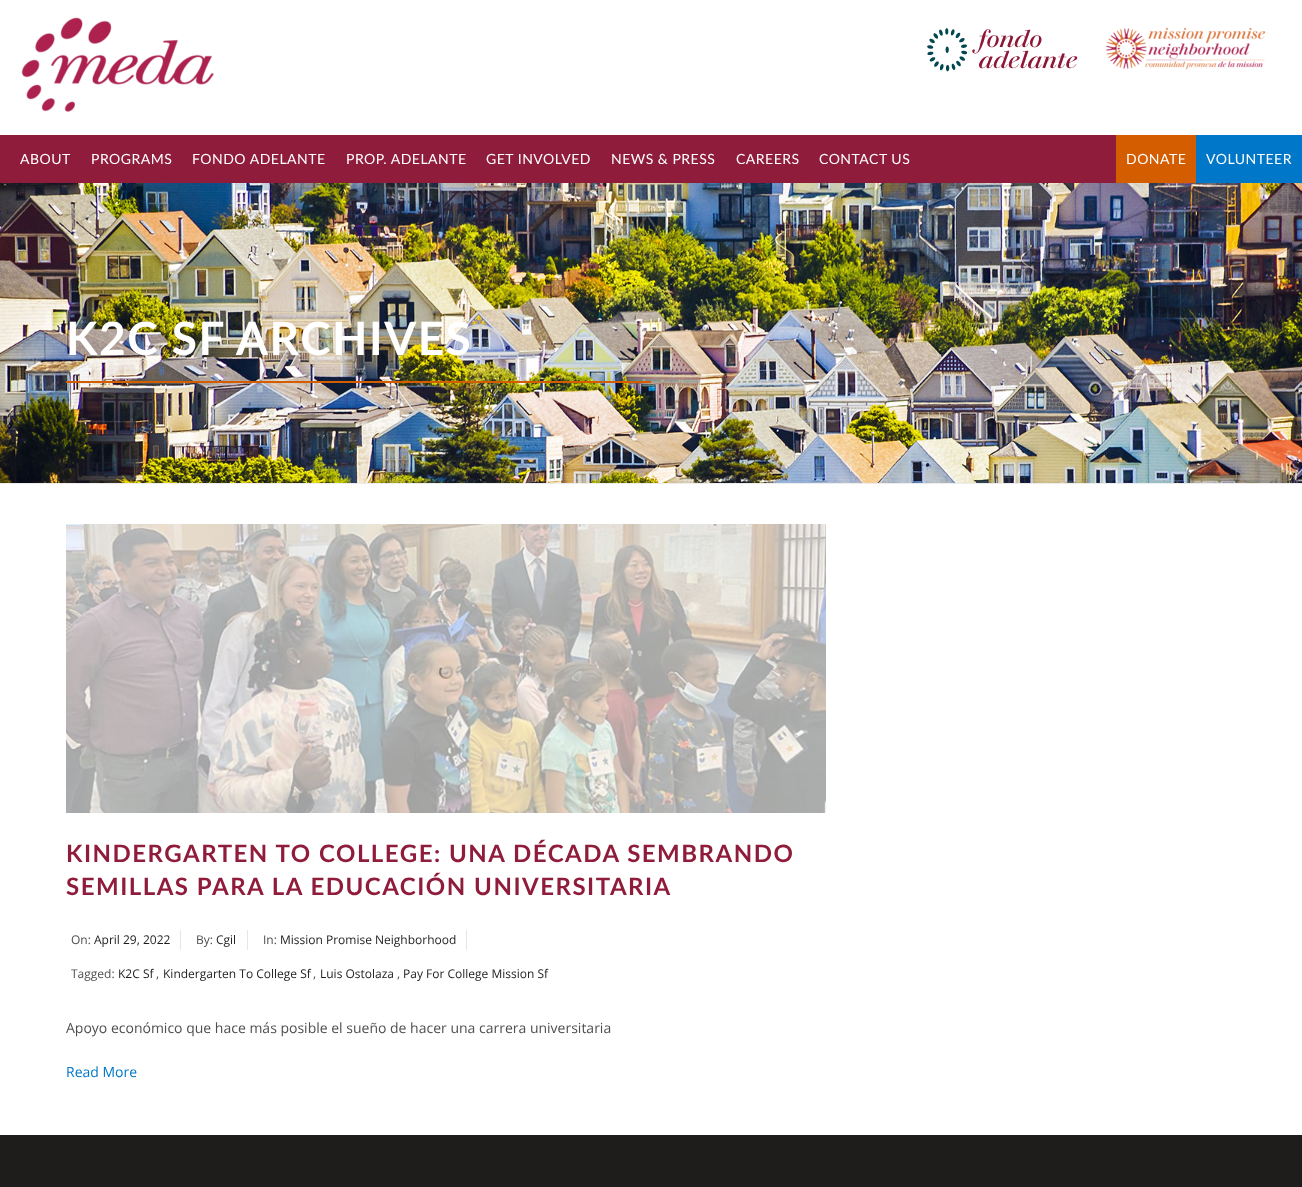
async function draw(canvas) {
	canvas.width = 1302;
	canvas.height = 1187;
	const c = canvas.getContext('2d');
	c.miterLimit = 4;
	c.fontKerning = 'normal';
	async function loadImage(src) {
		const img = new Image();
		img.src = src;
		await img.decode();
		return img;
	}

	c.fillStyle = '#fff';
	c.fillRect(0, 0, 1302, 1187);
	c.drawImage(await loadImage('img1.png'), 21, 17, 193, 95);
	c.drawImage(await loadImage('img2.png'), 927, 28, 151, 44);
	c.drawImage(await loadImage('img3.png'), 1105, 27, 161, 43);
	c.fillStyle = '#901c3b';
	c.fillRect(0, 135, 1116, 48);
	c.letterSpacing = '0.5px';
	c.font = '14px Lato';
	c.fillStyle = '#fff';
	for (const [text, x, y] of [
		['ABOUT', 20, 164],
		['PROGRAMS', 91, 164],
		['FONDO ADELANTE', 192, 164],
		['PROP. ADELANTE', 346, 164],
		['GET INVOLVED', 486, 164],
		['NEWS & PRESS', 611, 164],
		['CAREERS', 736, 164],
		['CONTACT US', 819, 164],
	]) {
		c.fillText(text, x, y);
	}
	c.fillStyle = '#d45d00';
	c.fillRect(1116, 135, 80, 48);
	c.fillStyle = '#fff';
	c.fillText('DONATE', 1126, 164);
	c.fillStyle = '#0077c8';
	c.fillRect(1196, 135, 106, 48);
	c.fillStyle = '#fff';
	c.fillText('VOLUNTEER', 1206, 164);
	c.drawImage(await loadImage('img4.png'), 0, 183, 1302, 300);
	c.fillStyle = '#ececec';
	c.fillRect(0, 483, 1302, 1);
	c.letterSpacing = '1.5px';
	c.font = 'bold 46px Lato';
	c.fillStyle = '#fff';
	c.fillText('K2C SF ARCHIVES', 66, 355);
	c.fillStyle = '#d45d00';
	c.fillRect(66, 381, 585, 2);
	c.drawImage(await loadImage('img5.png'), 439, 665, 14, 14);
	c.drawImage(await loadImage('img6.png'), 66, 524, 760, 289);
	c.font = 'bold 24px Lato';
	c.fillStyle = '#901c3b';
	c.fillText('KINDERGARTEN TO COLLEGE: UNA DÉCADA SEMBRANDO', 66, 862);
	c.fillText('SEMILLAS PARA LA EDUCACIÓN UNIVERSITARIA', 66, 895);
	c.fillStyle = '#e6e6e2';
	c.fillRect(180, 930, 1, 20);
	c.letterSpacing = '0px';
	c.font = '12px Open Sans';
	c.fillStyle = '#4f4f4f';
	c.fillText('On:', 71, 944);
	c.fillStyle = '#1e1d1c';
	c.fillText('April 29, 2022', 94, 944);
	c.fillStyle = '#e6e6e2';
	c.fillRect(247, 930, 1, 20);
	c.fillStyle = '#4f4f4f';
	c.fillText('By:', 196, 944);
	c.fillStyle = '#1e1d1c';
	c.fillText('Cgil', 216, 944);
	c.fillStyle = '#e6e6e2';
	c.fillRect(466, 930, 1, 20);
	c.fillStyle = '#4f4f4f';
	c.fillText('In:', 263, 944);
	c.fillStyle = '#1e1d1c';
	c.fillText('Mission Promise Neighborhood', 280, 944);
	c.fillStyle = '#4f4f4f';
	c.fillText('Tagged:', 71, 978);
	c.fillStyle = '#1e1d1c';
	c.fillText('K2C Sf', 118, 978);
	c.fillStyle = '#4f4f4f';
	c.fillText(',', 156, 978);
	c.fillStyle = '#1e1d1c';
	c.fillText('Kindergarten To College Sf', 163, 978);
	c.fillStyle = '#4f4f4f';
	c.fillText(',', 313, 978);
	c.fillStyle = '#1e1d1c';
	c.fillText('Luis Ostolaza', 320, 978);
	c.fillStyle = '#4f4f4f';
	c.fillText(',', 397, 978);
	c.fillStyle = '#1e1d1c';
	c.fillText('Pay For College Mission Sf', 403, 978);
	c.font = '14px Open Sans';
	c.fillStyle = '#4f4f4f';
	c.fillText('Apoyo económico que hace más posible el sueño de hacer una carrera universitaria', 66, 1033);
	c.fillStyle = '#0077c8';
	c.fillText('Read More', 66, 1077);
	c.fillStyle = '#1e1d1c';
	c.fillRect(0, 1135, 1302, 52);
}

draw(document.querySelector('canvas'));
